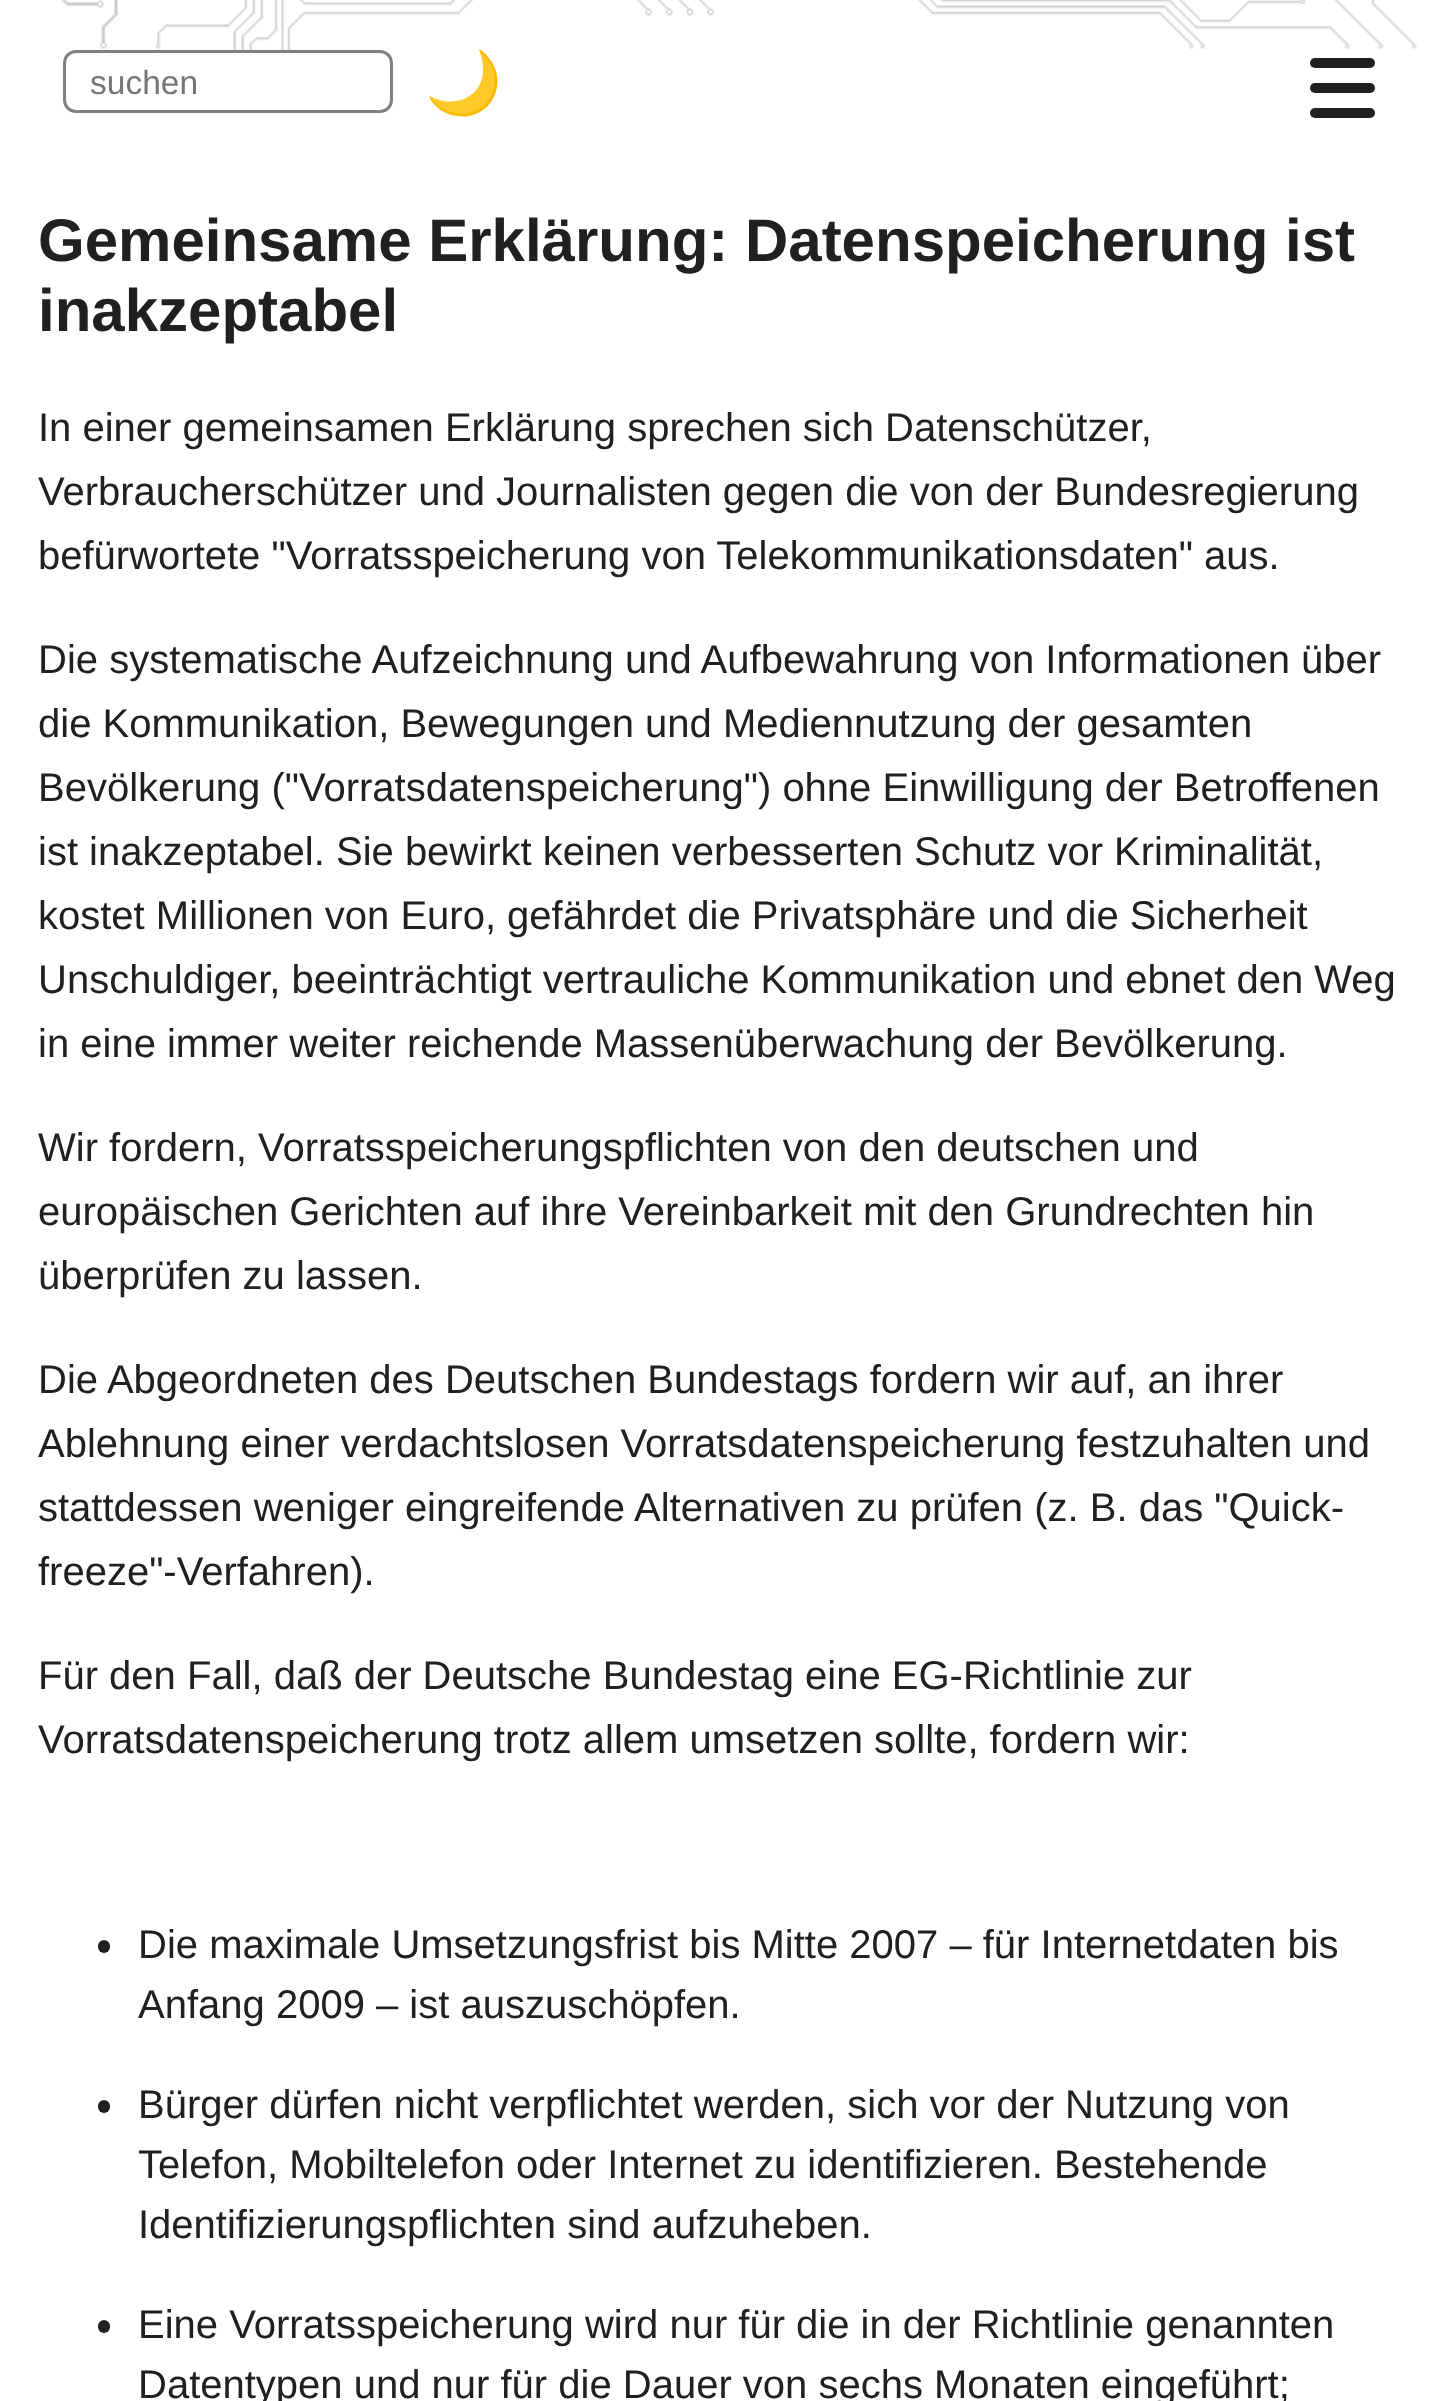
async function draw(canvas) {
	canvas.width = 1445;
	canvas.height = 2401;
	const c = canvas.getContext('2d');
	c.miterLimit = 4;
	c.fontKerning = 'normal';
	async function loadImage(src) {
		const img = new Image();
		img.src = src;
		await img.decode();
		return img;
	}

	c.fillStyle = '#fff';
	c.fillRect(0, 0, 1445, 2401);
	c.drawImage(await loadImage('img1.png'), 61, 0, 1356, 50);
	c.beginPath();
	c.roundRect(64.5, 51.5, 327, 60, 11.5);
	c.strokeStyle = '#808080';
	c.lineWidth = 3;
	c.stroke();
	c.font = '33.5px Liberation Sans';
	c.fillStyle = '#757575';
	c.fillText('suchen', 90, 94);
	c.font = '62px Noto Color Emoji';
	c.fillText('🌙', 425, 104);
	c.fillStyle = '#202020';
	c.beginPath();
	c.roundRect(1310, 58, 65, 10, 5);
	c.fill();
	c.beginPath();
	c.roundRect(1310, 83, 65, 10, 5);
	c.fill();
	c.beginPath();
	c.roundRect(1310, 108, 65, 10, 5);
	c.fill();
	c.font = 'bold 60px Liberation Sans';
	c.fillText('Gemeinsame Erklärung: Datenspeicherung ist', 38, 261);
	c.fillText('inakzeptabel', 38, 331);
	c.font = '40px Liberation Sans';
	for (const [text, x, y] of [
		['In einer gemeinsamen Erklärung sprechen sich Datenschützer,', 38, 441],
		['Verbraucherschützer und Journalisten gegen die von der Bundesregierung', 38, 505],
		['befürwortete "Vorratsspeicherung von Telekommunikationsdaten" aus.', 38, 569],
		['Die systematische Aufzeichnung und Aufbewahrung von Informationen über', 38, 673],
		['die Kommunikation, Bewegungen und Mediennutzung der gesamten', 38, 737],
		['Bevölkerung ("Vorratsdatenspeicherung") ohne Einwilligung der Betroffenen', 38, 801],
		['ist inakzeptabel. Sie bewirkt keinen verbesserten Schutz vor Kriminalität,', 38, 865],
		['kostet Millionen von Euro, gefährdet die Privatsphäre und die Sicherheit', 38, 929],
		['Unschuldiger, beeinträchtigt vertrauliche Kommunikation und ebnet den Weg', 38, 993],
		['in eine immer weiter reichende Massenüberwachung der Bevölkerung.', 38, 1057],
		['Wir fordern, Vorratsspeicherungspflichten von den deutschen und', 38, 1161],
		['europäischen Gerichten auf ihre Vereinbarkeit mit den Grundrechten hin', 38, 1225],
		['überprüfen zu lassen.', 38, 1289],
		['Die Abgeordneten des Deutschen Bundestags fordern wir auf, an ihrer', 38, 1393],
		['Ablehnung einer verdachtslosen Vorratsdatenspeicherung festzuhalten und', 38, 1457],
		['stattdessen weniger eingreifende Alternativen zu prüfen (z. B. das "Quick-', 38, 1521],
		['freeze"-Verfahren).', 38, 1585],
		['Für den Fall, daß der Deutsche Bundestag eine EG-Richtlinie zur', 38, 1689],
		['Vorratsdatenspeicherung trotz allem umsetzen sollte, fordern wir:', 38, 1753],
	]) {
		c.fillText(text, x, y);
	}
	c.beginPath();
	c.roundRect(98, 1940, 12, 13, 6);
	c.fill();
	c.fillText('Die maximale Umsetzungsfrist bis Mitte 2007 – für Internetdaten bis', 138, 1958);
	c.fillText('Anfang 2009 – ist auszuschöpfen.', 138, 2018);
	c.beginPath();
	c.roundRect(98, 2100, 12, 13, 6);
	c.fill();
	for (const [text, x, y] of [
		['Bürger dürfen nicht verpflichtet werden, sich vor der Nutzung von', 138, 2118],
		['Telefon, Mobiltelefon oder Internet zu identifizieren. Bestehende', 138, 2178],
		['Identifizierungspflichten sind aufzuheben.', 138, 2238],
	]) {
		c.fillText(text, x, y);
	}
	c.beginPath();
	c.roundRect(98, 2320, 12, 13, 6);
	c.fill();
	c.fillText('Eine Vorratsspeicherung wird nur für die in der Richtlinie genannten', 138, 2338);
	c.fillText('Datentypen und nur für die Dauer von sechs Monaten eingeführt;', 138, 2398);
}

draw(document.querySelector('canvas'));
